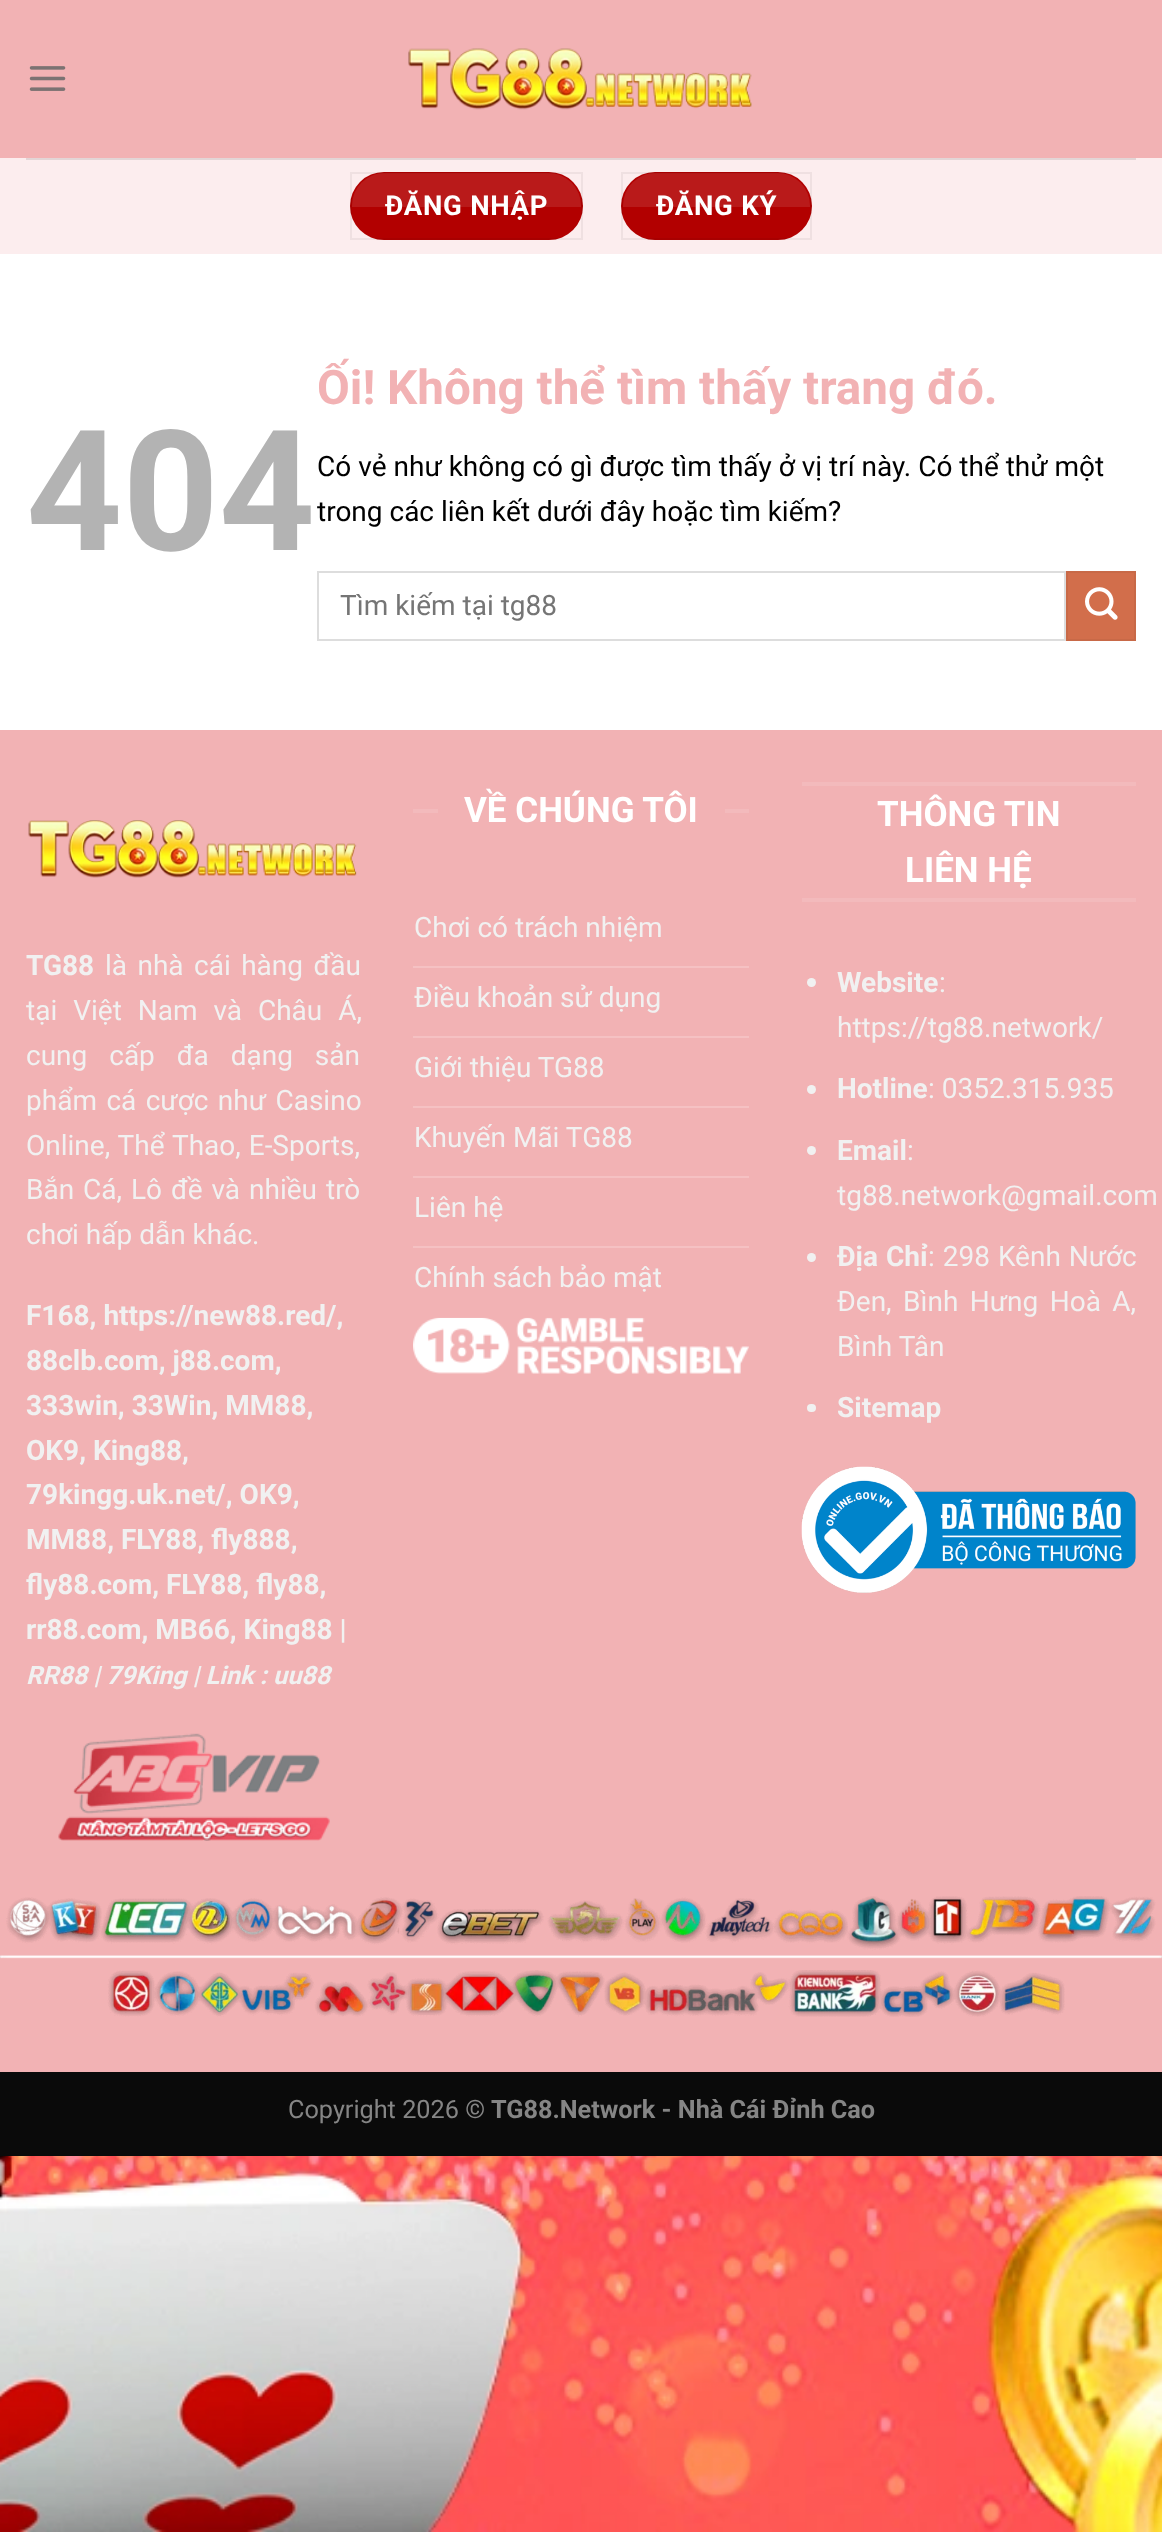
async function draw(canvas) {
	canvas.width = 1162;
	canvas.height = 2532;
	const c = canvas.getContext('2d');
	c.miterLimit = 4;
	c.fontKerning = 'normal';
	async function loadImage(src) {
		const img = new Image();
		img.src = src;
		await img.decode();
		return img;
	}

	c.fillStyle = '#fff';
	c.fillRect(0, 0, 1162, 2532);
	c.drawImage(await loadImage('img1.png'), 0, 2156, 1162, 376);
	c.fillStyle = '#f2b2b4';
	c.fillRect(0, 0, 1162, 158);
	c.drawImage(await loadImage('img2.png'), 29, 66, 37, 25);
	c.drawImage(await loadImage('img3.png'), 408, 48, 344, 62);
	c.fillStyle = '#fcedee';
	c.fillRect(0, 158, 1162, 96);
	c.fillStyle = '#e3d5d6';
	c.fillRect(26, 158, 1110, 2);
	c.fillStyle = '#b20000';
	c.beginPath();
	c.roundRect(350, 172, 233, 68, 34);
	c.fill();
	c.strokeStyle = '#0000000d';
	c.lineWidth = 2;
	c.strokeRect(351, 173, 231, 66);
	c.fillStyle = '#ffffff1a';
	c.beginPath();
	c.roundRect(352, 173, 229, 34, [32.5, 32.5, 0, 0]);
	c.fill();
	c.letterSpacing = '0.75px';
	c.font = 'bold 27.5px Roboto';
	c.fillStyle = '#fff';
	c.fillText('ĐĂNG NHẬP', 385, 215);
	c.fillStyle = '#b20000';
	c.beginPath();
	c.roundRect(621, 172, 191, 68, 34);
	c.fill();
	c.strokeRect(622, 173, 189, 66);
	c.fillStyle = '#ffffff1a';
	c.beginPath();
	c.roundRect(623, 173, 187, 34, [32.5, 32.5, 0, 0]);
	c.fill();
	c.fillStyle = '#fff';
	c.fillText('ĐĂNG KÝ', 656, 215);
	c.letterSpacing = '0px';
	c.font = 'bold 168px Roboto';
	c.fillStyle = '#b3b3b3';
	c.fillText('404', 26, 550);
	c.font = 'bold 47.6px Roboto';
	c.fillStyle = '#f2b2b4';
	c.fillText('Ối! Không thể tìm thấy trang đó.', 317, 404);
	c.font = '28px Roboto';
	c.fillStyle = '#000';
	c.fillText('Có vẻ như không có gì được tìm thấy ở vị trí này. Có thể thử một', 317, 476);
	c.fillText('trong các liên kết dưới đây hoặc tìm kiếm?', 317, 521);
	c.strokeStyle = '#ddd';
	c.strokeRect(318, 572, 747, 68);
	c.fillStyle = '#757575';
	c.fillText('Tìm kiếm tại tg88', 340, 615);
	c.fillStyle = '#d26e4b';
	c.beginPath();
	c.rect(1067, 572, 68, 68);
	c.fill();
	c.strokeStyle = '#c86947';
	c.stroke();
	c.drawImage(await loadImage('img4.png'), 1085, 587, 33, 33);
	c.fillStyle = '#f2b2b4';
	c.fillRect(0, 730, 1162, 1342);
	c.drawImage(await loadImage('img5.png'), 28, 820, 329, 58);
	c.font = 'bold 28px Roboto';
	c.fillStyle = '#f1f1f1';
	c.fillText('TG88', 26, 975);
	c.wordSpacing = '3.5px';
	c.font = '28px Roboto';
	c.fillText('là nhà cái hàng đầu', 105, 975);
	c.wordSpacing = '9px';
	c.fillText('tại Việt Nam và Châu Á,', 26, 1020);
	c.wordSpacing = '15px';
	c.fillText('cung cấp đa dạng sản', 26, 1065);
	c.wordSpacing = '2.5px';
	c.fillText('phẩm cá cược như Casino', 26, 1110);
	c.wordSpacing = '1px';
	c.fillText('Online, Thể Thao, E-Sports,', 26, 1155);
	c.wordSpacing = '2px';
	c.fillText('Bắn Cá, Lô đề và nhiều trò', 26, 1199);
	c.wordSpacing = '0px';
	c.fillText('chơi hấp dẫn khác.', 26, 1244);
	c.font = 'bold 28px Roboto';
	for (const [text, x, y] of [
		['F168, https://new88.red/,', 26, 1325],
		['88clb.com, j88.com,', 26, 1370],
		['333win, 33Win, MM88,', 26, 1415],
		['OK9, King88,', 26, 1460],
		['79kingg.uk.net/, OK9,', 26, 1504],
		['MM88, FLY88, fly888,', 26, 1549],
		['fly88.com, FLY88, fly88,', 26, 1594],
		['rr88.com, MB66, King88 |', 26, 1639],
	]) {
		c.fillText(text, x, y);
	}
	c.font = 'italic bold 25.25px Roboto';
	c.fillText('RR88 | 79King | Link : uu88', 26, 1684);
	c.drawImage(await loadImage('img6.png'), 58, 1733, 272, 108);
	c.fillStyle = '#f3babc';
	c.fillRect(413, 809, 25, 4);
	c.font = 'bold 35px Roboto';
	c.fillStyle = '#fff';
	c.fillText('VỀ CHÚNG TÔI', 464, 822);
	c.fillStyle = '#f3babc';
	c.fillRect(725, 809, 24, 4);
	c.fillStyle = '#f5c1c3';
	c.fillRect(413, 966, 336, 2);
	c.font = '28px Roboto';
	c.fillStyle = '#f1f1f1';
	c.fillText('Chơi có trách nhiệm', 414, 937);
	c.fillStyle = '#f5c1c3';
	c.fillRect(413, 1036, 336, 2);
	c.fillStyle = '#f1f1f1';
	c.fillText('Điều khoản sử dụng', 414, 1007);
	c.fillStyle = '#f5c1c3';
	c.fillRect(413, 1106, 336, 2);
	c.fillStyle = '#f1f1f1';
	c.fillText('Giới thiệu TG88', 414, 1077);
	c.fillStyle = '#f5c1c3';
	c.fillRect(413, 1176, 336, 2);
	c.fillStyle = '#f1f1f1';
	c.fillText('Khuyến Mãi TG88', 414, 1147);
	c.fillStyle = '#f5c1c3';
	c.fillRect(413, 1246, 336, 2);
	c.fillStyle = '#f1f1f1';
	c.fillText('Liên hệ', 414, 1217);
	c.fillText('Chính sách bảo mật', 414, 1287);
	c.drawImage(await loadImage('img7.png'), 413, 1317, 336, 57);
	c.fillStyle = '#f3babc';
	c.fillRect(802, 782, 334, 4);
	c.font = 'bold 35px Roboto';
	c.fillStyle = '#fff';
	c.fillText('THÔNG TIN', 877, 826);
	c.fillText('LIÊN HỆ', 905, 882);
	c.fillStyle = '#f3babc';
	c.fillRect(802, 898, 334, 4);
	c.fillStyle = '#f1f1f1';
	c.beginPath();
	c.arc(811.5, 982.5, 4.5, 0, 2 * Math.PI);
	c.fill();
	c.font = 'bold 28px Roboto';
	c.fillText('Website', 837, 992);
	c.font = '28px Roboto';
	c.fillText(':', 939, 992);
	c.fillText('https://tg88.network/', 837, 1037);
	c.beginPath();
	c.arc(811.5, 1089.5, 4.5, 0, 2 * Math.PI);
	c.fill();
	c.font = 'bold 28px Roboto';
	c.fillText('Hotline', 837, 1098);
	c.font = '28px Roboto';
	c.fillText(': 0352.315.935', 928, 1098);
	c.beginPath();
	c.arc(811.5, 1150.5, 4.5, 0, 2 * Math.PI);
	c.fill();
	c.font = 'bold 28px Roboto';
	c.fillText('Email', 837, 1160);
	c.font = '28px Roboto';
	c.fillText(':', 907, 1160);
	c.fillText('tg88.network@gmail.com', 837, 1205);
	c.beginPath();
	c.arc(811.5, 1257.5, 4.5, 0, 2 * Math.PI);
	c.fill();
	c.wordSpacing = '1px';
	c.font = 'bold 28px Roboto';
	c.fillText('Địa Chỉ', 837, 1266);
	c.font = '28px Roboto';
	c.fillText(': 298 Kênh Nước', 928, 1266);
	c.wordSpacing = '4.5px';
	c.fillText('Đen, Bình Hưng Hoà A,', 837, 1311);
	c.wordSpacing = '0px';
	c.fillText('Bình Tân', 837, 1356);
	c.beginPath();
	c.roundRect(807, 1404, 9, 8, 4);
	c.fill();
	c.font = 'bold 28px Roboto';
	c.fillText('Sitemap', 837, 1417);
	c.drawImage(await loadImage('img8.png'), 801, 1466, 335, 127);
	c.drawImage(await loadImage('img9.png'), 0, 1896, 1162, 121);
	c.fillStyle = '#0a0a0a';
	c.fillRect(0, 2072, 1162, 84);
	c.font = '25.25px Roboto';
	c.fillStyle = '#858585';
	c.fillText('Copyright 2026 ©', 288, 2118);
	c.font = 'bold 25.25px Roboto';
	c.fillText('TG88.Network - Nhà Cái Đỉnh Cao', 491, 2118);
}

draw(document.querySelector('canvas'));
